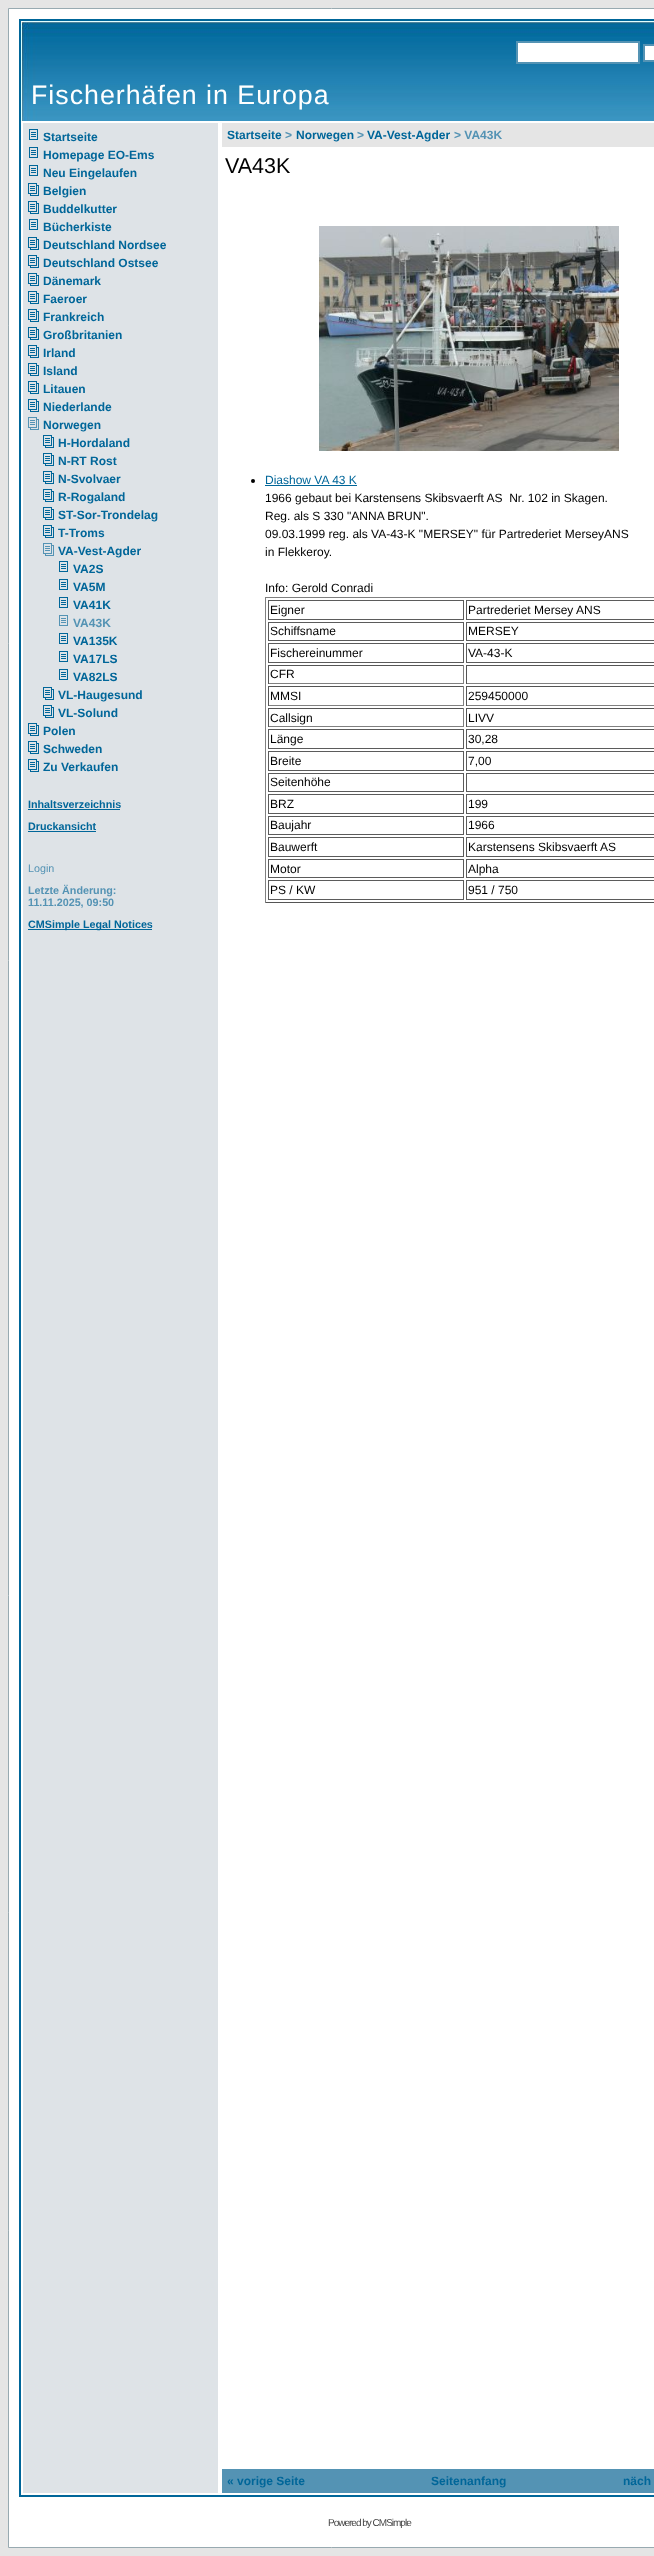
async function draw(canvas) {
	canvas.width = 654;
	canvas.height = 2556;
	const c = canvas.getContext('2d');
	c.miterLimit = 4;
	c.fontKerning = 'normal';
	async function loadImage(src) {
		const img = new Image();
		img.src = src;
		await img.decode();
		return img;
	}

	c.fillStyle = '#e5e5e5';
	c.fillRect(0, 0, 654, 2556);
	c.fillStyle = '#fff';
	c.beginPath();
	c.rect(8.5, 8.5, 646, 2539);
	c.fill();
	c.strokeStyle = '#98aab1';
	c.stroke();
	c.strokeStyle = '#069';
	c.lineWidth = 2;
	c.strokeRect(20, 20, 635, 2476);
	c.drawImage(await loadImage('img1.png'), 21, 21, 633, 100);
	c.beginPath();
	c.rect(517, 42, 122, 21);
	c.fill();
	c.strokeStyle = '#5493b4';
	c.stroke();
	c.beginPath();
	c.rect(644, 45, 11, 16);
	c.fill();
	c.stroke();
	c.letterSpacing = '1px';
	c.font = '26.75px Liberation Sans';
	c.fillText('Fischerhäfen in Europa', 31, 104);
	c.fillStyle = '#dee3e7';
	c.fillRect(23, 123, 195, 2370);
	c.drawImage(await loadImage('img2.png'), 29, 129, 9, 11);
	c.letterSpacing = '0px';
	c.font = 'bold 12px Liberation Sans';
	c.fillStyle = '#069';
	c.fillText('Startseite', 43, 141);
	c.drawImage(await loadImage('img2.png'), 29, 147, 9, 11);
	c.fillText('Homepage EO-Ems', 43, 159);
	c.drawImage(await loadImage('img2.png'), 29, 165, 9, 11);
	c.fillText('Neu Eingelaufen', 43, 177);
	c.drawImage(await loadImage('img3.png'), 28, 183, 11, 13);
	c.fillText('Belgien', 43, 195);
	c.drawImage(await loadImage('img3.png'), 28, 201, 11, 13);
	c.fillText('Buddelkutter', 43, 213);
	c.drawImage(await loadImage('img2.png'), 29, 219, 9, 11);
	c.fillText('Bücherkiste', 43, 231);
	c.drawImage(await loadImage('img3.png'), 28, 237, 11, 13);
	c.fillText('Deutschland Nordsee', 43, 249);
	c.drawImage(await loadImage('img3.png'), 28, 255, 11, 13);
	c.fillText('Deutschland Ostsee', 43, 267);
	c.drawImage(await loadImage('img3.png'), 28, 273, 11, 13);
	c.fillText('Dänemark', 43, 285);
	c.drawImage(await loadImage('img3.png'), 28, 291, 11, 13);
	c.fillText('Faeroer', 43, 303);
	c.drawImage(await loadImage('img3.png'), 28, 309, 11, 13);
	c.fillText('Frankreich', 43, 321);
	c.drawImage(await loadImage('img3.png'), 28, 327, 11, 13);
	c.fillText('Großbritanien', 43, 339);
	c.drawImage(await loadImage('img3.png'), 28, 345, 11, 13);
	c.fillText('Irland', 43, 357);
	c.drawImage(await loadImage('img3.png'), 28, 363, 11, 13);
	c.fillText('Island', 43, 375);
	c.drawImage(await loadImage('img3.png'), 28, 381, 11, 13);
	c.fillText('Litauen', 43, 393);
	c.drawImage(await loadImage('img3.png'), 28, 399, 11, 13);
	c.fillText('Niederlande', 43, 411);
	c.drawImage(await loadImage('img4.png'), 28, 417, 11, 13);
	c.fillText('Norwegen', 43, 429);
	c.drawImage(await loadImage('img3.png'), 43, 435, 11, 13);
	c.fillText('H-Hordaland', 58, 447);
	c.drawImage(await loadImage('img3.png'), 43, 453, 11, 13);
	c.fillText('N-RT Rost', 58, 465);
	c.drawImage(await loadImage('img3.png'), 43, 471, 11, 13);
	c.fillText('N-Svolvaer', 58, 483);
	c.drawImage(await loadImage('img3.png'), 43, 489, 11, 13);
	c.fillText('R-Rogaland', 58, 501);
	c.drawImage(await loadImage('img3.png'), 43, 507, 11, 13);
	c.fillText('ST-Sor-Trondelag', 58, 519);
	c.drawImage(await loadImage('img3.png'), 43, 525, 11, 13);
	c.fillText('T-Troms', 58, 537);
	c.drawImage(await loadImage('img4.png'), 43, 543, 11, 13);
	c.fillText('VA-Vest-Agder', 58, 555);
	c.drawImage(await loadImage('img2.png'), 59, 561, 9, 11);
	c.fillText('VA2S', 73, 573);
	c.drawImage(await loadImage('img2.png'), 59, 579, 9, 11);
	c.fillText('VA5M', 73, 591);
	c.drawImage(await loadImage('img2.png'), 59, 597, 9, 11);
	c.fillText('VA41K', 73, 609);
	c.drawImage(await loadImage('img5.png'), 59, 615, 9, 11);
	c.fillStyle = '#5493b4';
	c.fillText('VA43K', 73, 627);
	c.drawImage(await loadImage('img2.png'), 59, 633, 9, 11);
	c.fillStyle = '#069';
	c.fillText('VA135K', 73, 645);
	c.drawImage(await loadImage('img2.png'), 59, 651, 9, 11);
	c.fillText('VA17LS', 73, 663);
	c.drawImage(await loadImage('img2.png'), 59, 669, 9, 11);
	c.fillText('VA82LS', 73, 681);
	c.drawImage(await loadImage('img3.png'), 43, 687, 11, 13);
	c.fillText('VL-Haugesund', 58, 699);
	c.drawImage(await loadImage('img3.png'), 43, 705, 11, 13);
	c.fillText('VL-Solund', 58, 717);
	c.drawImage(await loadImage('img3.png'), 28, 723, 11, 13);
	c.fillText('Polen', 43, 735);
	c.drawImage(await loadImage('img3.png'), 28, 741, 11, 13);
	c.fillText('Schweden', 43, 753);
	c.drawImage(await loadImage('img3.png'), 28, 759, 11, 13);
	c.fillText('Zu Verkaufen', 43, 771);
	c.font = 'bold 10.75px Liberation Sans';
	c.fillText('Inhaltsverzeichnis', 28, 808);
	c.fillRect(28, 809, 92, 1);
	c.fillText('Druckansicht', 28, 830);
	c.fillRect(28, 831, 68, 1);
	c.font = '10.75px Liberation Sans';
	c.fillStyle = '#5493b4';
	c.fillText('Login', 28, 872);
	c.font = 'bold 10.75px Liberation Sans';
	c.fillText('Letzte Änderung:', 28, 894);
	c.fillText('11.11.2025, 09:50', 28, 906);
	c.fillStyle = '#069';
	c.fillRect(28, 929, 124, 1);
	c.fillText('CMSimple Legal Notices', 28, 928);
	c.fillStyle = '#e5e5e5';
	c.fillRect(222, 123, 432, 24);
	c.font = 'bold 12px Liberation Sans';
	c.fillStyle = '#069';
	c.fillText('Startseite', 227, 139);
	c.fillStyle = '#5493b4';
	c.fillText('>', 285, 139);
	c.fillStyle = '#069';
	c.fillText('Norwegen', 296, 139);
	c.fillStyle = '#5493b4';
	c.fillText('>', 357, 139);
	c.fillStyle = '#069';
	c.fillText('VA-Vest-Agder', 367, 139);
	c.fillStyle = '#5493b4';
	c.fillText('> VA43K', 454, 139);
	c.font = '21.5px Liberation Sans';
	c.fillStyle = '#000';
	c.fillText('VA43K', 225, 173);
	c.drawImage(await loadImage('img6.png'), 319, 226, 300, 225);
	c.beginPath();
	c.arc(253, 481, 2, 0, 2 * Math.PI);
	c.fill();
	c.font = '12px Liberation Sans';
	c.fillStyle = '#069';
	c.fillText('Diashow VA 43 K', 265, 484);
	c.fillRect(265, 485, 92, 1);
	c.fillStyle = '#000';
	for (const [text, x, y] of [
		['1966 gebaut bei Karstensens Skibsvaerft AS  Nr. 102 in Skagen.', 265, 502],
		['Reg. als S 330 "ANNA BRUN".', 265, 520],
		['09.03.1999 reg. als VA-43-K "MERSEY" für Partrederiet MerseyANS', 265, 538],
		['in Flekkeroy.', 265, 556],
		['Info: Gerold Conradi', 265, 592],
	]) {
		c.fillText(text, x, y);
	}
	for (const [x, y, w, h, color] of [
		[265, 597, 389, 1, '#808080'],
		[265, 902, 389, 1, '#555'],
		[265, 597, 1, 306, '#808080'],
	]) {
		c.fillStyle = color;
		c.fillRect(x, y, w, h);
	}
	c.strokeStyle = '#5b5b5b';
	c.lineWidth = 1;
	c.strokeRect(268.5, 600.5, 195, 19);
	c.fillStyle = '#000';
	c.fillText('Eigner', 270, 614);
	c.strokeRect(466.5, 600.5, 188, 19);
	c.fillText('Partrederiet Mersey ANS', 468, 614);
	c.strokeRect(268.5, 622.5, 195, 18);
	c.fillText('Schiffsname', 270, 635);
	c.strokeRect(466.5, 622.5, 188, 18);
	c.fillText('MERSEY', 468, 635);
	c.strokeRect(268.5, 643.5, 195, 19);
	c.fillText('Fischereinummer', 270, 657);
	c.strokeRect(466.5, 643.5, 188, 19);
	c.fillText('VA-43-K', 468, 657);
	for (const [x, y, w, h, color] of [
		[268, 665, 196, 1, '#555'],
		[463, 665, 1, 19, '#808080'],
		[268, 683, 196, 1, '#808080'],
		[268, 665, 1, 19, '#555'],
	]) {
		c.fillStyle = color;
		c.fillRect(x, y, w, h);
	}
	c.fillStyle = '#000';
	c.fillText('CFR', 270, 678);
	for (const [x, y, w, h, color] of [
		[466, 665, 188, 1, '#555'],
		[466, 683, 188, 1, '#808080'],
		[466, 665, 1, 19, '#555'],
		[268, 686, 196, 1, '#555'],
		[463, 686, 1, 20, '#808080'],
		[268, 705, 196, 1, '#808080'],
		[268, 686, 1, 20, '#555'],
	]) {
		c.fillStyle = color;
		c.fillRect(x, y, w, h);
	}
	c.fillStyle = '#000';
	c.fillText('MMSI', 270, 700);
	for (const [x, y, w, h, color] of [
		[466, 686, 188, 1, '#555'],
		[466, 705, 188, 1, '#808080'],
		[466, 686, 1, 20, '#555'],
	]) {
		c.fillStyle = color;
		c.fillRect(x, y, w, h);
	}
	c.fillStyle = '#000';
	c.fillText('259450000', 468, 700);
	for (const [x, y, w, h, color] of [
		[268, 708, 196, 1, '#555'],
		[463, 708, 1, 19, '#808080'],
		[268, 726, 196, 1, '#808080'],
		[268, 708, 1, 19, '#555'],
	]) {
		c.fillStyle = color;
		c.fillRect(x, y, w, h);
	}
	c.fillStyle = '#000';
	c.fillText('Callsign', 270, 722);
	for (const [x, y, w, h, color] of [
		[466, 708, 188, 1, '#555'],
		[466, 726, 188, 1, '#808080'],
		[466, 708, 1, 19, '#555'],
	]) {
		c.fillStyle = color;
		c.fillRect(x, y, w, h);
	}
	c.fillStyle = '#000';
	c.fillText('LIVV', 468, 722);
	c.strokeRect(268.5, 729.5, 195, 19);
	c.fillText('Länge', 270, 743);
	c.strokeRect(466.5, 729.5, 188, 19);
	c.fillText('30,28', 468, 743);
	c.strokeRect(268.5, 751.5, 195, 19);
	c.fillText('Breite', 270, 765);
	c.strokeRect(466.5, 751.5, 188, 19);
	c.fillText('7,00', 468, 765);
	c.strokeRect(268.5, 773.5, 195, 18);
	c.fillText('Seitenhöhe', 270, 786);
	c.strokeRect(466.5, 773.5, 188, 18);
	c.strokeRect(268.5, 794.5, 195, 19);
	c.fillText('BRZ', 270, 808);
	c.strokeRect(466.5, 794.5, 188, 19);
	c.fillText('199', 468, 808);
	c.strokeRect(268.5, 816.5, 195, 18);
	c.fillText('Baujahr', 270, 829);
	c.strokeRect(466.5, 816.5, 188, 18);
	c.fillText('1966', 468, 829);
	c.strokeRect(268.5, 837.5, 195, 19);
	c.fillText('Bauwerft', 270, 851);
	c.strokeRect(466.5, 837.5, 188, 19);
	c.fillText('Karstensens Skibsvaerft AS', 468, 851);
	c.strokeRect(268.5, 859.5, 195, 18);
	c.fillText('Motor', 270, 873);
	c.strokeRect(466.5, 859.5, 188, 18);
	c.fillText('Alpha', 468, 873);
	c.strokeRect(268.5, 880.5, 195, 19);
	c.fillText('PS / KW', 270, 894);
	c.strokeRect(466.5, 880.5, 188, 19);
	c.fillText('951 / 750', 468, 894);
	c.fillStyle = '#5493b4';
	c.fillRect(222, 2469, 432, 24);
	c.font = 'bold 12px Liberation Sans';
	c.fillStyle = '#069';
	for (const [text, x, y] of [
		['« vorige Seite', 227, 2485],
		['Seitenanfang', 431, 2485],
		['näch', 623, 2485],
	]) {
		c.fillText(text, x, y);
	}
	c.letterSpacing = '-1px';
	c.font = '10px Liberation Sans';
	c.fillStyle = '#444';
	c.fillText('Powered by CMSimple', 328, 2526);
}

draw(document.querySelector('canvas'));
